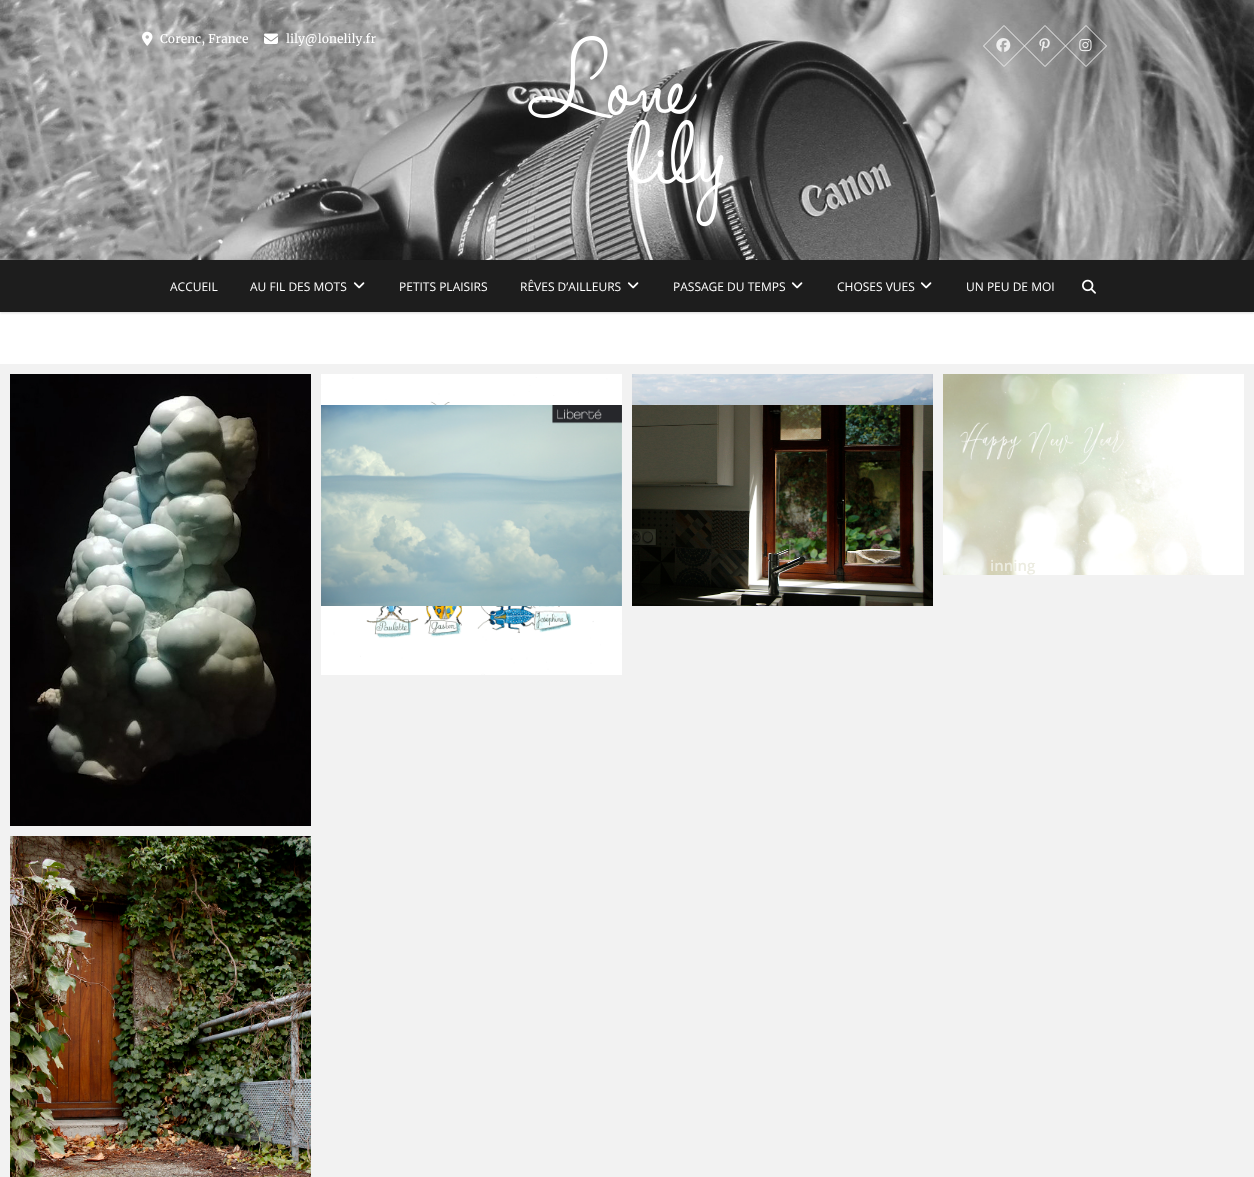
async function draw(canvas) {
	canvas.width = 1254;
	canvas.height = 1177;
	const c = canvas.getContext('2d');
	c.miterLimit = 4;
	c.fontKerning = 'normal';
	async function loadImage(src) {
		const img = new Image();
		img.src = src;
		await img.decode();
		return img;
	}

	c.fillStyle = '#fff';
	c.fillRect(0, 0, 1254, 1177);
	c.drawImage(await loadImage('img1.png'), 0, 0, 1254, 260);
	c.drawImage(await loadImage('img2.png'), 142, 31, 11, 15);
	c.font = '12px Merriweather';
	c.fillText('Corenc, France', 160, 43);
	c.drawImage(await loadImage('img3.png'), 264, 33, 14, 11);
	c.fillText('lily@lonelily.fr', 286, 43);
	c.drawImage(await loadImage('img4.png'), 528, 36, 196, 191);
	c.beginPath();
	c.moveTo(983.5, 46);
	c.lineTo(1004, 25.5);
	c.lineTo(1024.5, 46);
	c.lineTo(1004, 66.5);
	c.closePath();
	c.strokeStyle = '#eee';
	c.stroke();
	c.drawImage(await loadImage('img5.png'), 996, 38, 15, 14);
	c.beginPath();
	c.moveTo(1024.5, 46);
	c.lineTo(1045, 25.5);
	c.lineTo(1065.5, 46);
	c.lineTo(1045, 66.5);
	c.closePath();
	c.stroke();
	c.drawImage(await loadImage('img6.png'), 1039, 38, 11, 14);
	c.beginPath();
	c.moveTo(1065.5, 46);
	c.lineTo(1086, 25.5);
	c.lineTo(1106.5, 46);
	c.lineTo(1086, 66.5);
	c.closePath();
	c.stroke();
	c.drawImage(await loadImage('img7.png'), 1079, 38, 13, 14);
	c.fillStyle = '#00000026';
	c.filter = 'blur(1px)';
	c.beginPath();
	c.rect(0, 261, 1254, 52);
	c.fill();
	c.filter = 'none';
	c.fillStyle = '#1d1d1d';
	c.fillRect(0, 260, 1254, 52);
	c.font = '12px Open Sans';
	c.fillStyle = '#fff';
	c.fillText('ACCUEIL', 170, 291);
	c.fillText('AU FIL DES MOTS', 250, 291);
	c.drawImage(await loadImage('img8.png'), 353, 282, 12, 7);
	c.fillText('PETITS PLAISIRS', 399, 291);
	c.fillText('RÊVES D’AILLEURS', 520, 291);
	c.drawImage(await loadImage('img8.png'), 627, 282, 12, 7);
	c.fillText('PASSAGE DU TEMPS', 673, 291);
	c.drawImage(await loadImage('img8.png'), 791, 282, 12, 7);
	c.fillText('CHOSES VUES', 837, 291);
	c.drawImage(await loadImage('img8.png'), 920, 282, 12, 7);
	c.fillText('UN PEU DE MOI', 966, 291);
	c.drawImage(await loadImage('img9.png'), 1082, 279, 14, 15);
	c.fillStyle = '#f2f2f2';
	c.fillRect(0, 364, 1254, 813);
	c.drawImage(await loadImage('img10.png'), 10, 374, 301, 452);
	c.drawImage(await loadImage('img11.png'), 321, 374, 301, 301);
	c.drawImage(await loadImage('img12.png'), 632, 374, 301, 31);
	c.drawImage(await loadImage('img13.png'), 321, 405, 301, 201);
	c.drawImage(await loadImage('img14.png'), 632, 405, 301, 201);
	c.drawImage(await loadImage('img15.png'), 943, 374, 301, 201);
	c.font = '600 15px Open Sans';
	c.fillStyle = '#ecece1';
	c.fillText('inning', 990, 571);
	c.drawImage(await loadImage('img16.png'), 10, 836, 301, 341);
}

draw(document.querySelector('canvas'));
